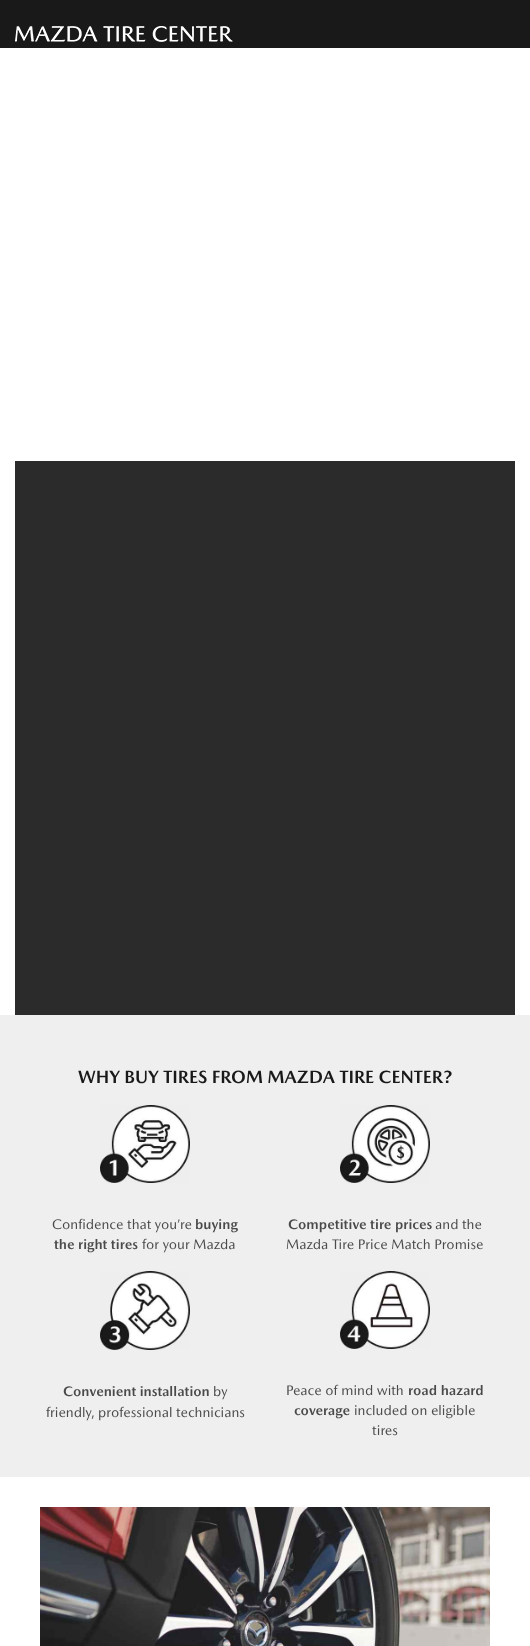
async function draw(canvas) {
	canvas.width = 530;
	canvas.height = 1646;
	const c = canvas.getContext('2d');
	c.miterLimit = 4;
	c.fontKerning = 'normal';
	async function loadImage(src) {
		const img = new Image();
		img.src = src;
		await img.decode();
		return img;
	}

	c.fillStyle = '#fff';
	c.fillRect(0, 0, 530, 1646);
	c.fillStyle = '#191919';
	c.fillRect(0, 0, 530, 48);
	c.drawImage(await loadImage('img1.png'), 15, 26, 218, 16);
	c.fillStyle = '#2b2b2b';
	c.fillRect(15, 461, 500, 554);
	c.fillStyle = '#efefef';
	c.fillRect(0, 1015, 530, 462);
	c.font = 'bold 18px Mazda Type';
	c.fillStyle = '#191919';
	c.fillText('WHY BUY TIRES FROM MAZDA TIRE CENTER?', 78, 1083);
	c.drawImage(await loadImage('img2.png'), 100, 1105, 90, 78);
	c.font = '14px Mazda Type';
	c.fillStyle = '#4a4a4a';
	c.fillText('Confidence that you’re', 52, 1229);
	c.font = 'bold 14px Mazda Type';
	c.fillText('buying', 195, 1229);
	c.fillText('the right tires', 54, 1249);
	c.font = '14px Mazda Type';
	c.fillText('for your Mazda', 142, 1249);
	c.drawImage(await loadImage('img3.png'), 340, 1105, 90, 78);
	c.font = 'bold 14px Mazda Type';
	c.fillText('Competitive tire prices', 288, 1229);
	c.font = '14px Mazda Type';
	c.fillText('and the', 435, 1229);
	c.fillText('Mazda Tire Price Match Promise', 286, 1249);
	c.drawImage(await loadImage('img4.png'), 100, 1271, 90, 79);
	c.font = 'bold 14px Mazda Type';
	c.fillText('Convenient installation', 63, 1396);
	c.font = '14px Mazda Type';
	c.fillText('by', 213, 1396);
	c.fillText('friendly, professional technicians', 46, 1417);
	c.drawImage(await loadImage('img5.png'), 340, 1271, 90, 78);
	c.fillText('Peace of mind with', 286, 1395);
	c.font = 'bold 14px Mazda Type';
	c.fillText('road hazard', 408, 1395);
	c.fillText('coverage', 294, 1415);
	c.font = '14px Mazda Type';
	c.fillText('included on eligible', 354, 1415);
	c.fillText('tires', 372, 1435);
	c.drawImage(await loadImage('img6.png'), 40, 1507, 450, 139);
}

draw(document.querySelector('canvas'));
